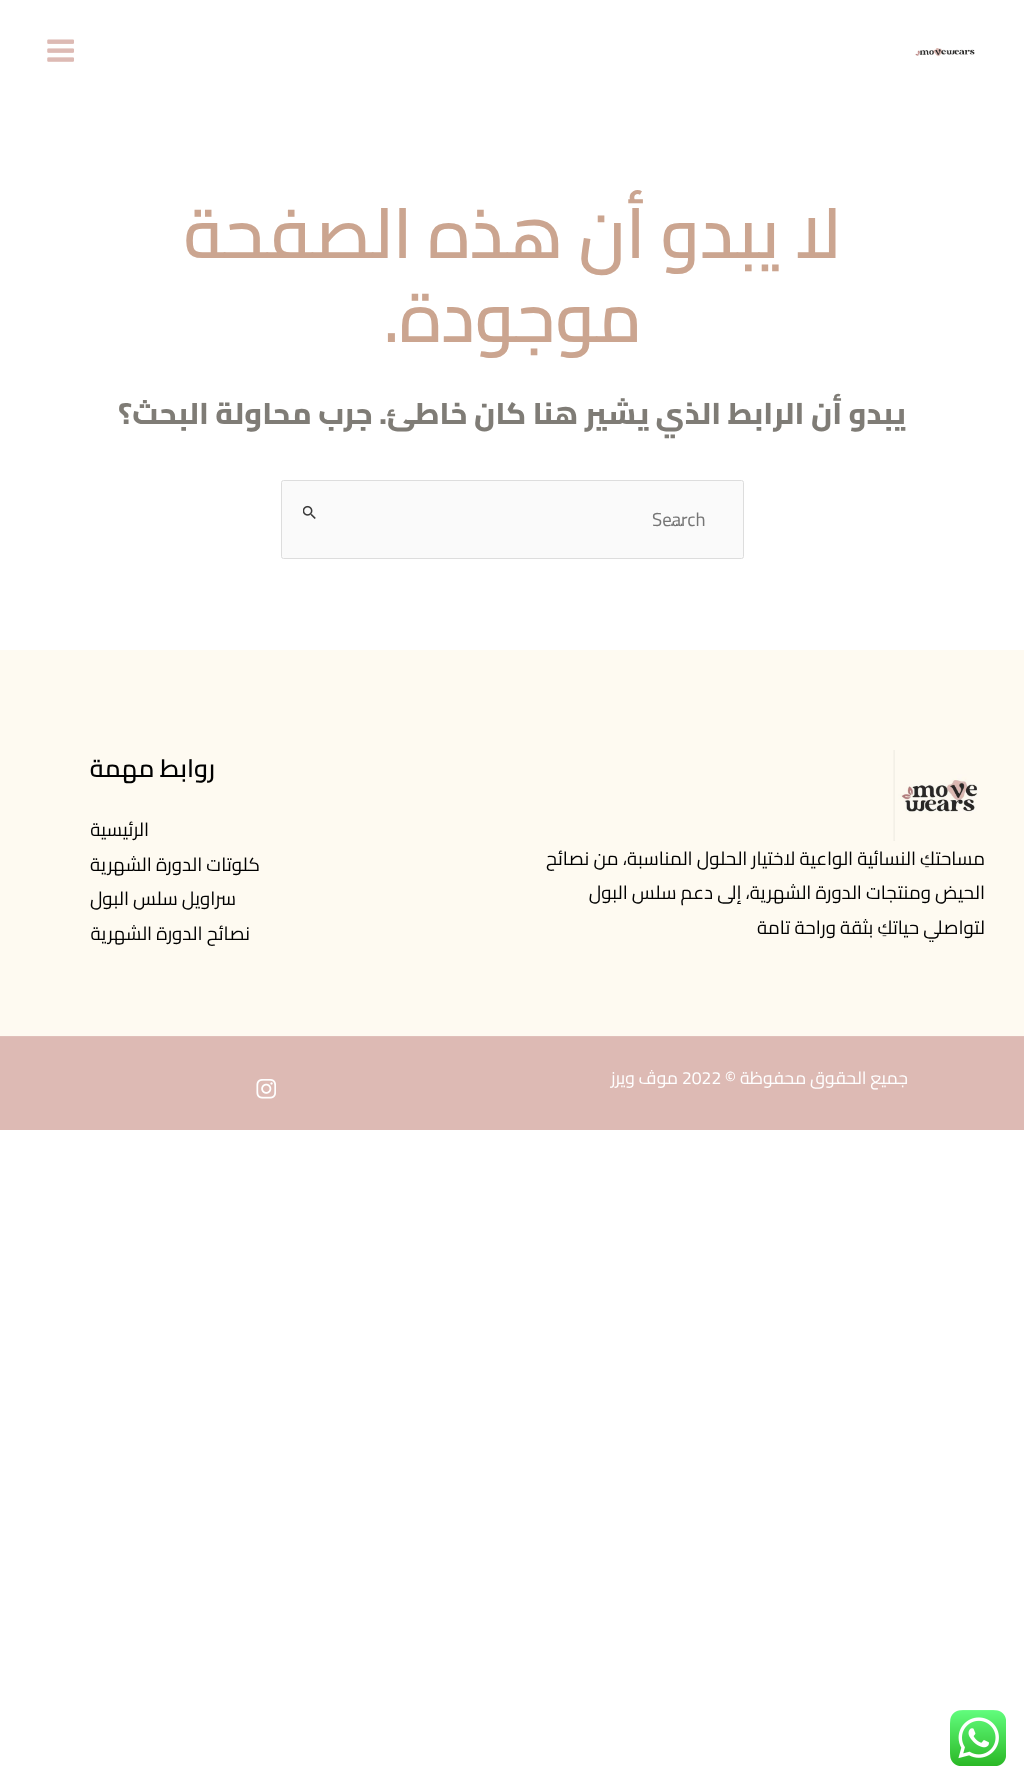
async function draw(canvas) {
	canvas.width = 1024;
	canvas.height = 1784;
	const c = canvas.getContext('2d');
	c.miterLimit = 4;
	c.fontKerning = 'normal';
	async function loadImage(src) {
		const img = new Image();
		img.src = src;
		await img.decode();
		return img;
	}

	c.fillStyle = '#fff';
	c.fillRect(0, 0, 1024, 1784);
	c.drawImage(await loadImage('img1.png'), 915, 48, 60, 9);
	c.drawImage(await loadImage('img2.png'), 47, 39, 27, 23);
	c.direction = 'rtl';
	c.font = '600 70px Cairo';
	c.fillStyle = '#cba590';
	c.fillText('لا يبدو أن هذه الصفحة', 841, 258);
	c.fillText('موجودة.', 642, 342);
	c.font = '800 30px Cairo';
	c.fillStyle = '#7f7c76';
	c.fillText('يبدو أن الرابط الذي يشير هنا كان خاطئ. جرب محاولة البحث؟', 906, 424);
	c.fillStyle = '#fafafa';
	c.beginPath();
	c.roundRect(281.5, 480.5, 462, 78, 2);
	c.fill();
	c.strokeStyle = '#ddd';
	c.stroke();
	c.direction = 'ltr';
	c.font = '18.75px Cairo';
	c.fillStyle = '#757575';
	c.fillText('Search', 652, 526);
	c.fillText('…', 670, 526);
	c.drawImage(await loadImage('img3.png'), 303, 505, 13, 14);
	c.fillStyle = '#fefaf1';
	c.fillRect(0, 650, 1024, 386);
	c.drawImage(await loadImage('img4.png'), 893, 750, 85, 91);
	c.direction = 'rtl';
	c.fillStyle = '#000';
	for (const [text, x, y] of [
		['مساحتكِ النسائية الواعية لاختيار الحلول المناسبة، من نصائح', 985, 865],
		['الحيض ومنتجات الدورة الشهرية، إلى دعم سلس البول', 985, 899],
		['لتواصلي حياتكِ بثقة وراحة تامة', 985, 934],
	]) {
		c.fillText(text, x, y);
	}
	c.font = '600 25px Cairo';
	c.fillText('روابط مهمة', 215, 777);
	c.font = '18.75px Cairo';
	for (const [text, x, y] of [
		['الرئيسية', 149, 836],
		['كلوتات الدورة الشهرية', 260, 871],
		['سراويل سلس البول', 236, 905],
		['نصائح الدورة الشهرية', 250, 940],
	]) {
		c.fillText(text, x, y);
	}
	c.fillStyle = '#ddbab4';
	c.fillRect(0, 1037, 1024, 93);
	c.fillStyle = '#e0c0ba';
	c.fillRect(0, 1036, 1024, 1);
	c.font = '17.5px Cairo';
	c.fillStyle = '#fff';
	c.fillText('جميع الحقوق محفوظة ©', 908, 1084);
	c.direction = 'ltr';
	c.fillText('2022', 682, 1084);
	c.direction = 'rtl';
	c.fillText('موڤ ويرز', 678, 1084);
	c.drawImage(await loadImage('img5.png'), 256, 1079, 20, 20);
	c.drawImage(await loadImage('img6.png'), 950, 1710, 56, 56);
}

draw(document.querySelector('canvas'));
